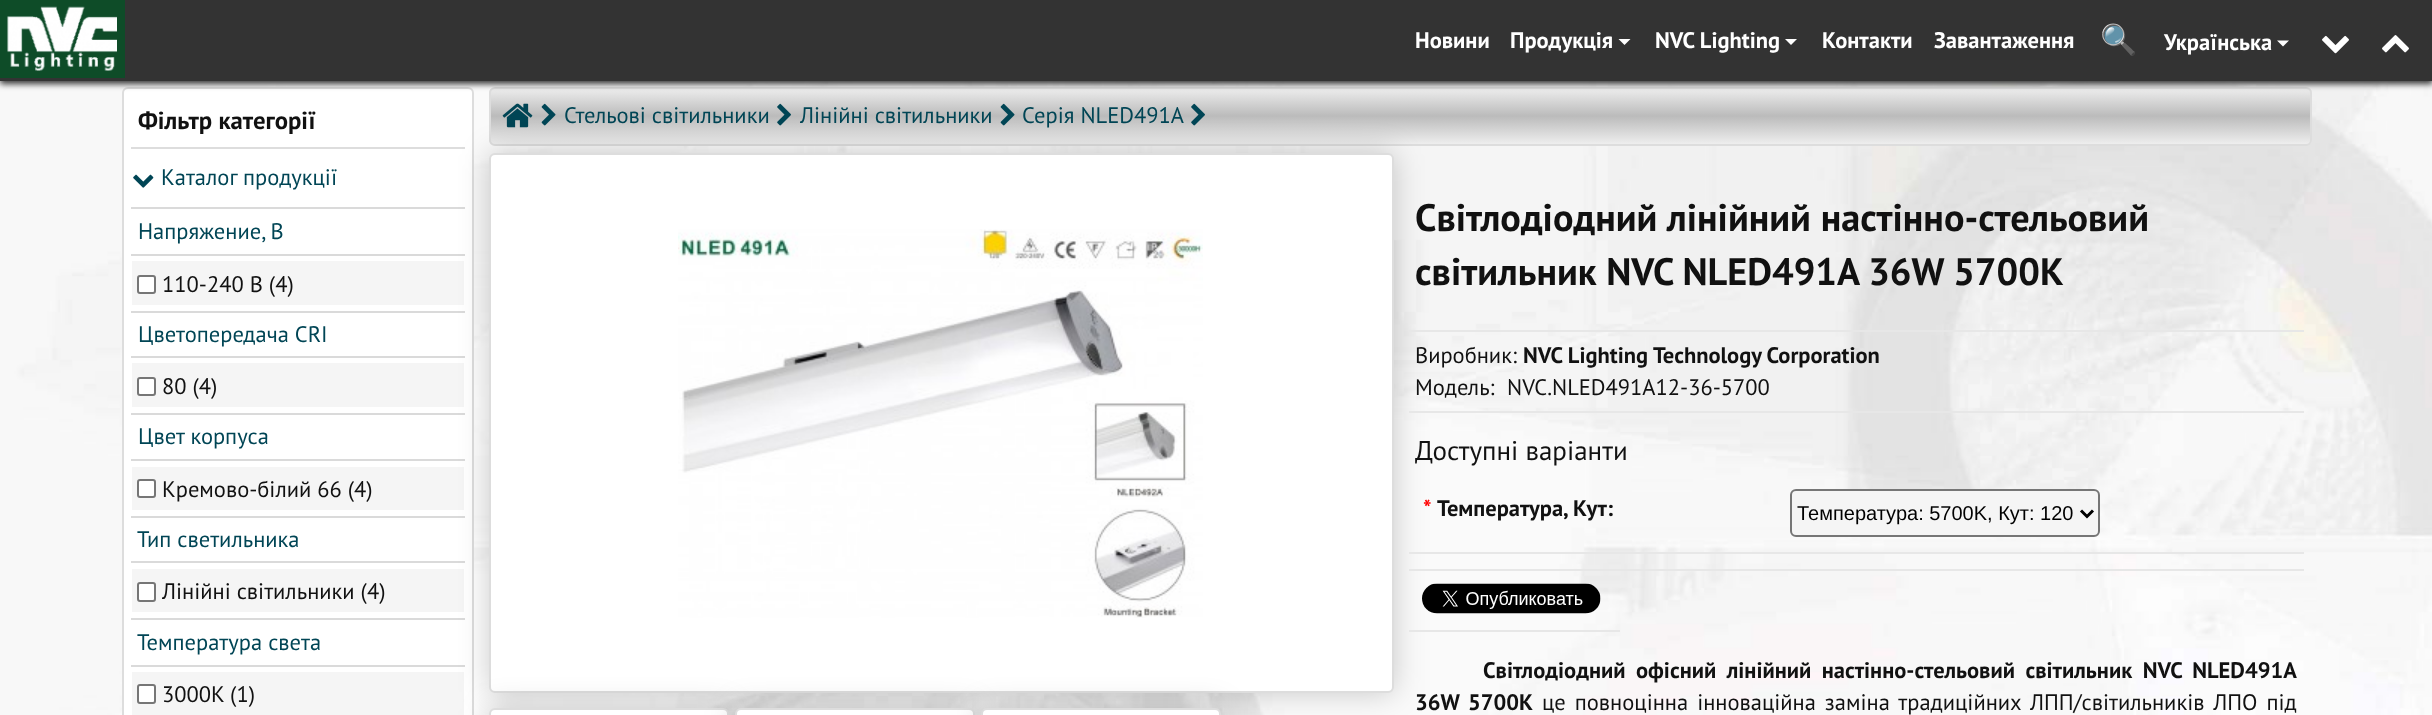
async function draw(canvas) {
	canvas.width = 2432;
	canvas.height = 715;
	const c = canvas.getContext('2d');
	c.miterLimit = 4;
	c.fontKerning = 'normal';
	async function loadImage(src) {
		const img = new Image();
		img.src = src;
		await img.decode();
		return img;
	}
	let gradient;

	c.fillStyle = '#fff';
	c.fillRect(0, 0, 2432, 715);
	c.drawImage(await loadImage('img1.png'), 0, 81, 2432, 634);
	c.beginPath();
	c.roundRect(123, 88, 350, 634, 5);
	c.fill();
	c.strokeStyle = '#ddd';
	c.lineWidth = 2;
	c.stroke();
	c.save();
	c.beginPath();
	c.roundRect(489, 87, 1823, 59, 6);
	c.clip();
	gradient = c.createLinearGradient(1400, 88, 1400, 144);
	gradient.addColorStop(0, '#eee');
	gradient.addColorStop(0.5, '#bbb');
	gradient.addColorStop(1, '#eee');
	c.fillStyle = gradient;
	c.fillRect(489, 89, 1823, 55);
	c.restore();
	c.beginPath();
	c.roundRect(490, 88, 1821, 57, 5);
	c.stroke();
	c.fillStyle = '#333';
	c.filter = 'blur(3px)';
	c.beginPath();
	c.rect(0, 3, 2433, 81);
	c.fill();
	c.filter = 'none';
	c.fillRect(0, 0, 2432, 81);
	c.fillStyle = '#0e4c28';
	c.fillRect(0, 0, 125, 78);
	c.drawImage(await loadImage('img2.png'), 7, 6, 110, 65);
	c.font = 'bold 22.5px PT Sans';
	c.fillStyle = '#fff';
	c.fillText('Новини', 1415, 48);
	c.fillText('Продукція', 1510, 48);
	c.beginPath();
	c.moveTo(1618.5, 39);
	c.lineTo(1630.5, 39);
	c.lineTo(1624.5, 45);
	c.closePath();
	c.fill();
	c.fillText('NVC Lighting', 1655, 48);
	c.beginPath();
	c.moveTo(1785, 39);
	c.lineTo(1797, 39);
	c.lineTo(1791, 45);
	c.closePath();
	c.fill();
	c.fillText('Контакти', 1822, 48);
	c.fillText('Завантаження', 1934, 48);
	c.font = 'bold 30px Noto Color Emoji';
	c.fillText('🔍', 2100, 50);
	c.font = 'bold 22.5px PT Sans';
	c.fillText('Українська', 2164, 50);
	c.beginPath();
	c.moveTo(2277, 40.5);
	c.lineTo(2289, 40.5);
	c.lineTo(2283, 46.5);
	c.closePath();
	c.fill();
	c.drawImage(await loadImage('img3.png'), 2322, 35, 27, 19);
	c.drawImage(await loadImage('img4.png'), 2382, 35, 27, 18);
	c.fillStyle = '#ddd';
	c.fillRect(131, 147, 334, 2);
	c.font = 'bold 24.75px PT Sans';
	c.fillStyle = '#111';
	c.fillText('Фільтр категорії', 138, 129);
	c.drawImage(await loadImage('img5.png'), 133, 174, 21, 14);
	c.font = '22.5px PT Sans';
	c.fillStyle = '#004555';
	c.fillText('Каталог продукції', 161, 185);
	c.fillStyle = '#dadada';
	c.fillRect(131, 207, 334, 2);
	c.fillStyle = '#004555';
	c.fillText('Напряжение, В', 138, 239);
	c.fillStyle = '#dadada';
	c.fillRect(131, 254, 334, 2);
	c.fillStyle = '#f5f5f5';
	c.fillRect(132, 261, 332, 44);
	c.fillStyle = '#fff';
	c.beginPath();
	c.roundRect(138, 276, 17, 17, 2);
	c.fill();
	c.strokeStyle = '#767676';
	c.stroke();
	c.fillStyle = '#111';
	c.fillText('110-240 В (4)', 162, 292);
	c.fillStyle = '#dadada';
	c.fillRect(131, 311, 334, 2);
	c.fillStyle = '#004555';
	c.fillText('Цветопередача CRI', 138, 342);
	c.fillStyle = '#dadada';
	c.fillRect(131, 356, 334, 2);
	c.fillStyle = '#f5f5f5';
	c.fillRect(132, 363, 332, 44);
	c.fillStyle = '#fff';
	c.beginPath();
	c.roundRect(138, 378, 17, 17, 2);
	c.fill();
	c.stroke();
	c.fillStyle = '#111';
	c.fillText('80 (4)', 162, 394);
	c.fillStyle = '#dadada';
	c.fillRect(131, 413, 334, 2);
	c.fillStyle = '#004555';
	c.fillText('Цвет корпуса', 138, 444);
	c.fillStyle = '#dadada';
	c.fillRect(131, 459, 334, 2);
	c.fillStyle = '#f5f5f5';
	c.fillRect(132, 467, 332, 43);
	c.fillStyle = '#fff';
	c.beginPath();
	c.roundRect(138, 480, 17, 17, 2);
	c.fill();
	c.stroke();
	c.fillStyle = '#111';
	c.fillText('Кремово-білий 66 (4)', 162, 497);
	c.fillStyle = '#dadada';
	c.fillRect(131, 516, 334, 2);
	c.fillStyle = '#004555';
	c.fillText('Тип светильника', 137, 547);
	c.fillStyle = '#dadada';
	c.fillRect(131, 561, 334, 2);
	c.fillStyle = '#f5f5f5';
	c.fillRect(132, 569, 332, 43);
	c.fillStyle = '#fff';
	c.beginPath();
	c.roundRect(138, 583, 17, 18, 2);
	c.fill();
	c.stroke();
	c.fillStyle = '#111';
	c.fillText('Лінійні світильники (4)', 162, 599);
	c.fillStyle = '#dadada';
	c.fillRect(131, 618, 334, 2);
	c.fillStyle = '#004555';
	c.fillText('Температура света', 137, 650);
	c.fillStyle = '#dadada';
	c.fillRect(131, 665, 334, 2);
	c.fillStyle = '#f5f5f5';
	c.fillRect(132, 672, 332, 43);
	c.fillStyle = '#fff';
	c.beginPath();
	c.roundRect(138, 685, 17, 18, 2);
	c.fill();
	c.stroke();
	c.fillStyle = '#111';
	c.fillText('3000K (1)', 162, 702);
	c.drawImage(await loadImage('img6.png'), 502, 103, 31, 25);
	c.drawImage(await loadImage('img7.png'), 541, 103, 15, 23);
	c.fillStyle = '#004555';
	c.fillText('Стельові світильники', 564, 123);
	c.drawImage(await loadImage('img8.png'), 777, 103, 14, 23);
	c.fillText('Лінійні світильники', 800, 123);
	c.drawImage(await loadImage('img7.png'), 1000, 103, 15, 23);
	c.fillText('Серія NLED491A', 1022, 123);
	c.drawImage(await loadImage('img8.png'), 1191, 103, 14, 23);
	c.fillStyle = '#00000033';
	c.filter = 'blur(15px)';
	c.beginPath();
	c.roundRect(489, 153, 905, 540, 6);
	c.fill();
	c.filter = 'none';
	c.fillStyle = '#fff';
	c.beginPath();
	c.roundRect(490, 154, 903, 538, 5);
	c.fill();
	c.strokeStyle = '#ddd';
	c.stroke();
	c.drawImage(await loadImage('img9.png'), 678, 229, 525, 389);
	c.fillStyle = '#00000033';
	c.filter = 'blur(15px)';
	c.beginPath();
	c.roundRect(489, 708, 240, 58, 6);
	c.fill();
	c.filter = 'none';
	c.fillStyle = '#fff';
	c.beginPath();
	c.roundRect(490, 709, 238, 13, 5);
	c.fill();
	c.stroke();
	c.fillStyle = '#00000033';
	c.filter = 'blur(15px)';
	c.beginPath();
	c.roundRect(735, 708, 240, 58, 6);
	c.fill();
	c.filter = 'none';
	c.fillStyle = '#fff';
	c.beginPath();
	c.roundRect(736, 709, 238, 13, 5);
	c.fill();
	c.stroke();
	c.fillStyle = '#00000033';
	c.filter = 'blur(15px)';
	c.beginPath();
	c.roundRect(981, 708, 240, 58, 6);
	c.fill();
	c.filter = 'none';
	c.fillStyle = '#fff';
	c.beginPath();
	c.roundRect(982, 709, 238, 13, 5);
	c.fill();
	c.stroke();
	c.fillStyle = '#e7e7e7';
	c.fillRect(1409, 330, 895, 2);
	c.font = 'bold 38.25px PT Sans';
	c.fillStyle = '#111';
	c.fillText('Світлодіодний лінійний настінно-стельовий', 1415, 231);
	c.fillText('світильник NVC NLED491A 36W 5700K', 1415, 285);
	c.fillStyle = '#e7e7e7';
	c.fillRect(1409, 411, 895, 2);
	c.font = '22.5px PT Sans';
	c.fillStyle = '#111';
	c.fillText('Виробник:', 1415, 363);
	c.font = 'bold 22.5px PT Sans';
	c.fillText('NVC Lighting Technology Corporation', 1523, 363);
	c.font = '22.5px PT Sans';
	c.fillText('Модель:', 1415, 395);
	c.fillText('NVC.NLED491A12-36-5700', 1507, 395);
	c.fillStyle = '#e7e7e7';
	c.fillRect(1409, 552, 895, 2);
	c.font = '27px PT Sans';
	c.fillStyle = '#111';
	c.fillText('Доступні варіанти', 1415, 460);
	c.font = 'bold 22.5px PT Sans';
	c.fillStyle = '#f00';
	c.fillText('*', 1423, 516);
	c.fillStyle = '#111';
	c.fillText('Температура, Кут:', 1437, 516);
	c.fillStyle = '#f5f5f5';
	c.beginPath();
	c.roundRect(1791, 490, 308, 46, 5);
	c.fill();
	c.strokeStyle = '#767676';
	c.stroke();
	c.beginPath();
	c.moveTo(2081, 510.5);
	c.lineTo(2087, 516.5);
	c.lineTo(2093, 510.5);
	c.strokeStyle = '#000';
	c.lineWidth = 3;
	c.stroke();
	c.font = '20px Liberation Sans';
	c.fillStyle = '#000';
	c.fillText('Температура: 5700K, Кут: 120', 1797, 520);
	c.fillStyle = '#e7e7e7';
	c.fillRect(1409, 569, 895, 2);
	c.fillRect(1409, 630, 211, 2);
	c.drawImage(await loadImage('img10.png'), 1422, 583, 179, 31);
	c.wordSpacing = '4.75px';
	c.font = 'bold 22.5px PT Sans';
	c.fillStyle = '#111';
	c.fillText('Світлодіодний офісний лінійний настінно-стельовий світильник NVC NLED491A', 1483, 678);
	c.wordSpacing = '3px';
	c.fillText('36W 5700K', 1415, 710);
	c.font = '22.5px PT Sans';
	c.fillText('це повноцінна інноваційна заміна традиційних ЛПП/світильників ЛПО під', 1542, 710);
}

draw(document.querySelector('canvas'));
